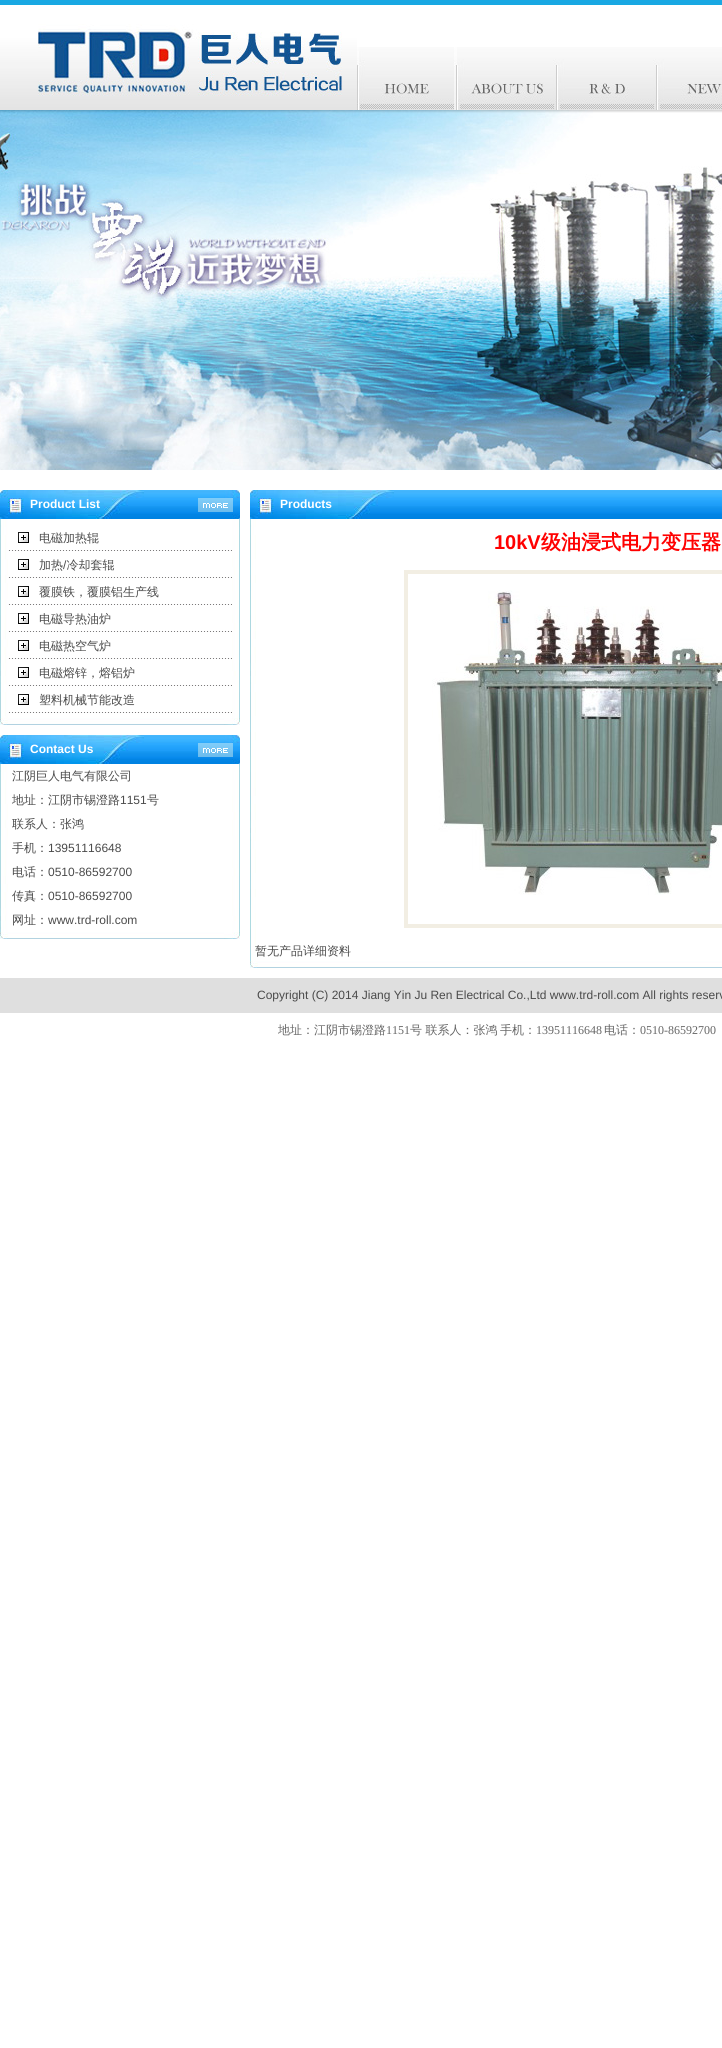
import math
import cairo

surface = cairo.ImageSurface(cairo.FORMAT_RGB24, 722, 2048)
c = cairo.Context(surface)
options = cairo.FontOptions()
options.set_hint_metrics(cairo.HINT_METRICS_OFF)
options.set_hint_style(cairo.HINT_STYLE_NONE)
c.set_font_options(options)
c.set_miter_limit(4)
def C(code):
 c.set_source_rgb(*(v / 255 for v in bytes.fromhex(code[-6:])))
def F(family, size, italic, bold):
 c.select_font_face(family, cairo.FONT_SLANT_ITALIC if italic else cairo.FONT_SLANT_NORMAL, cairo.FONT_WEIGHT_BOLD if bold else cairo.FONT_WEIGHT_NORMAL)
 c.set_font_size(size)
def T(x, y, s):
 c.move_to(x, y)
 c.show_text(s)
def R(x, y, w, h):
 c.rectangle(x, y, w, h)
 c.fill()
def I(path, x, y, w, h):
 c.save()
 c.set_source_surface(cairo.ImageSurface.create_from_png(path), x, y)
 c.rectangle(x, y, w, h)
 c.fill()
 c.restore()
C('ffffff')
c.paint()
I('1.png',0,0,38,110)
I('2.png',38,0,319,110)
I('3.png',357,0,365,5)
I('4.png',357,47,100,63)
I('5.png',457,47,100,63)
I('6.png',557,47,100,63)
I('7.png',657,47,65,63)
I('8.png',0,110,722,360)
I('9.png',0,490,240,29)
F('Liberation Sans',12,0,1)
C('ffffff')
T(30,508,'Product List')
I('10.png',198,498,35,14)
I('11.png',0,519,240,199)
I('12.png',18,532,11,11)
F('WenQuanYi Zen Hei Medium',12,0,0)
C('4a4a4a')
T(39,542,'电磁加热辊')
I('13.png',8,550,224,1)
I('12.png',18,559,11,11)
T(39,569,'加热 冷却套辊')
F('Liberation Sans',12,0,0)
T(63,569,'/')
I('13.png',8,577,224,1)
I('12.png',18,586,11,11)
F('WenQuanYi Zen Hei Medium',12,0,0)
T(39,596,'覆膜铁，覆膜铝生产线')
I('13.png',8,604,224,1)
I('12.png',18,613,11,11)
T(39,623,'电磁导热油炉')
I('13.png',8,631,224,1)
I('12.png',18,640,11,11)
T(39,650,'电磁热空气炉')
I('13.png',8,658,224,1)
I('12.png',18,667,11,11)
T(39,677,'电磁熔锌，熔铝炉')
I('13.png',8,685,224,1)
I('12.png',18,694,11,11)
T(39,704,'塑料机械节能改造')
I('13.png',8,712,224,1)
I('14.png',0,718,240,7)
I('9.png',0,735,240,29)
F('Liberation Sans',12,0,1)
C('ffffff')
T(30,753,'Contact Us')
I('10.png',198,743,35,14)
I('15.png',0,764,240,168)
F('WenQuanYi Zen Hei Medium',12,0,0)
C('4a4a4a')
T(12,780,'江阴巨人电气有限公司')
T(12,804,'地址：江阴市锡澄路')
F('Liberation Sans',12,0,0)
T(120,804,'1151')
F('WenQuanYi Zen Hei Medium',12,0,0)
T(147,804,'号')
T(12,828,'联系人：张鸿')
T(12,852,'手机：')
F('Liberation Sans',12,0,0)
T(48,852,'13951116648')
F('WenQuanYi Zen Hei Medium',12,0,0)
T(12,876,'电话：')
F('Liberation Sans',12,0,0)
T(48,876,'0510-86592700')
F('WenQuanYi Zen Hei Medium',12,0,0)
T(12,900,'传真：')
F('Liberation Sans',12,0,0)
T(48,900,'0510-86592700')
F('WenQuanYi Zen Hei Medium',12,0,0)
T(12,924,'网址：')
F('Liberation Sans',12,0,0)
T(48,924,'www.trd-roll.com')
I('14.png',0,932,240,7)
I('16.png',250,490,472,29)
F('Liberation Sans',12,0,1)
C('ffffff')
T(280,508,'Products')
I('17.png',250,519,6,442)
F('Liberation Sans',20,0,1)
C('ff0000')
T(494,549,'10kV')
F('WenQuanYi Zen Hei',20,0,1)
T(541,549,'级油浸式电力变压器')
c.rectangle(406,572,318,354)
C('f2eee3')
c.set_line_width(4)
c.stroke()
I('18.png',432,590,290,305)
F('WenQuanYi Zen Hei Medium',12,0,0)
C('4a4a4a')
T(255,955,'暂无产品详细资料')
I('19.png',250,961,472,7)
C('dfdfdf')
R(0,978,722,35)
F('Liberation Sans',12,0,0)
C('4a4a4a')
T(257,999,'Copyright (C) 2014 Jiang Yin Ju Ren Electrical Co.,Ltd www.trd-roll.com All rights reserv')
F('WenQuanYi Zen Hei Medium',12,0,0)
C('666666')
T(278,1034,'地址：江阴市锡澄路')
F('Liberation Serif',12,0,0)
T(386,1034,'1151')
F('WenQuanYi Zen Hei Medium',12,0,0)
T(410,1034,'号 联系人：张鸿')
T(500,1034,'手机：')
F('Liberation Serif',12,0,0)
T(536,1034,'13951116648')
F('WenQuanYi Zen Hei Medium',12,0,0)
T(604,1034,'电话：')
F('Liberation Serif',12,0,0)
T(640,1034,'0510-86592700')
surface.write_to_png('o.png')
